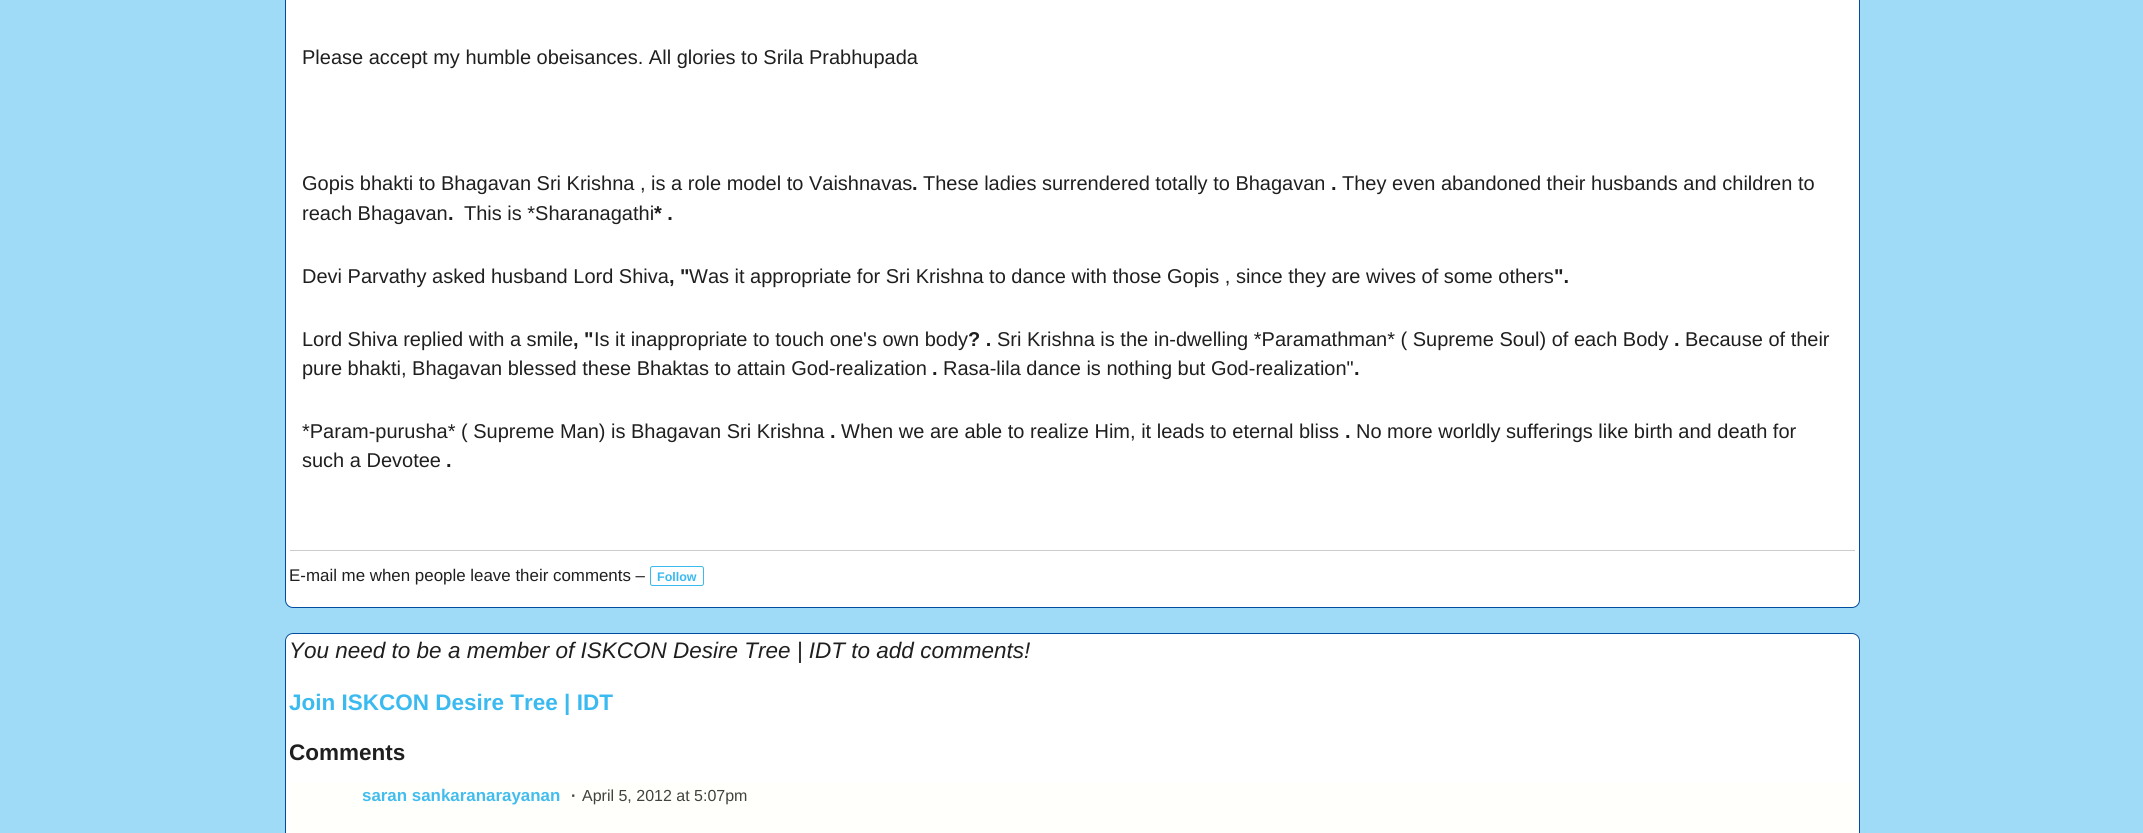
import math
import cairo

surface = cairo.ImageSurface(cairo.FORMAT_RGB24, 2143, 833)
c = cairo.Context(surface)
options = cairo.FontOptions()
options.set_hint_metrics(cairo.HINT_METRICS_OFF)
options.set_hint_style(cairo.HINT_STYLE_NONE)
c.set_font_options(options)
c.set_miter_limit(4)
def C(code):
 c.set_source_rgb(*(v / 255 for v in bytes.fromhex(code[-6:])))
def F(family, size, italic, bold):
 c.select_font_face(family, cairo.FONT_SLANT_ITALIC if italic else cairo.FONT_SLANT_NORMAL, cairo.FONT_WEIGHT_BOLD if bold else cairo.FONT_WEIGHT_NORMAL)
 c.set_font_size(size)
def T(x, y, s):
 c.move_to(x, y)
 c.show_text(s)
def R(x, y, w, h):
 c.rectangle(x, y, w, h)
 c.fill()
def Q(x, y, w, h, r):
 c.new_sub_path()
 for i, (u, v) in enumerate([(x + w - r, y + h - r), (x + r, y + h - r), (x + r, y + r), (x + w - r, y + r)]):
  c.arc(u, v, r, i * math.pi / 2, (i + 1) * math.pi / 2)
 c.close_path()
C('9fdaf7')
c.paint()
C('ffffff')
Q(285.5,-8.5,1574,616,7.5)
c.fill_preserve()
C('004d9f')
c.set_line_width(1)
c.stroke()
F('Liberation Sans',20,0,0)
C('1f1f1f')
T(302,64,'Please accept my humble obeisances. All glories to Srila Prabhupada')
T(302,190,'Gopis bhakti to Bhagavan Sri Krishna , is a role model to Vaishnavas')
F('Liberation Sans',20,0,1)
T(912,190,'.')
F('Liberation Sans',20,0,0)
T(923,190,'These ladies surrendered totally to Bhagavan')
F('Liberation Sans',20,0,1)
T(1331,190,'.')
F('Liberation Sans',20,0,0)
T(1342,190,'They even abandoned their husbands and children to')
T(302,220,'reach Bhagavan')
F('Liberation Sans',20,0,1)
T(448,220,'.')
F('Liberation Sans',20,0,0)
T(464,220,'This is *Sharanagathi')
F('Liberation Sans',20,0,1)
T(654,220,'* .')
F('Liberation Sans',20,0,0)
T(302,283,'Devi Parvathy asked husband Lord Shiva')
F('Liberation Sans',20,0,1)
T(669,283,', "')
F('Liberation Sans',20,0,0)
T(689,283,'Was it appropriate for Sri Krishna to dance with those Gopis , since they are wives of some others')
F('Liberation Sans',20,0,1)
T(1554,283,'".')
F('Liberation Sans',20,0,0)
T(302,346,'Lord Shiva replied with a smile')
F('Liberation Sans',20,0,1)
T(573,346,', "')
F('Liberation Sans',20,0,0)
T(594,346,'Is it inappropriate to touch one\'s own body')
F('Liberation Sans',20,0,1)
T(968,346,'? .')
F('Liberation Sans',20,0,0)
T(997,346,'Sri Krishna is the in-dwelling *Paramathman* ( Supreme Soul) of each Body')
F('Liberation Sans',20,0,1)
T(1674,346,'.')
F('Liberation Sans',20,0,0)
T(1685,346,'Because of their')
T(302,375,'pure bhakti, Bhagavan blessed these Bhaktas to attain God-realization')
F('Liberation Sans',20,0,1)
T(932,375,'.')
F('Liberation Sans',20,0,0)
T(943,375,'Rasa-lila dance is nothing but God-realization"')
F('Liberation Sans',20,0,1)
T(1354,375,'.')
F('Liberation Sans',20,0,0)
T(302,438,'*Param-purusha* ( Supreme Man) is Bhagavan Sri Krishna')
F('Liberation Sans',20,0,1)
T(830,438,'.')
F('Liberation Sans',20,0,0)
T(841,438,'When we are able to realize Him, it leads to eternal bliss')
F('Liberation Sans',20,0,1)
T(1345,438,'.')
F('Liberation Sans',20,0,0)
T(1356,438,'No more worldly sufferings like birth and death for')
T(302,467,'such a Devotee')
F('Liberation Sans',20,0,1)
T(446,467,'.')
C('cccccc')
R(290,550,1565,1)
F('Liberation Sans',16.9,0,0)
C('1f1f1f')
T(289,581,'E-mail me when people leave their comments –')
Q(650.5,566.5,53,19,2)
C('3bbaf0')
c.stroke()
F('Liberation Sans',12.5,0,1)
T(657,581,'Follow')
C('ffffff')
Q(285,633,1575,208,8)
c.fill()
C('fffffb')
R(290,783,1565,50)
Q(285.5,633.5,1574,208,7.5)
C('004d9f')
c.stroke()
F('Liberation Sans',22.5,1,0)
C('1f1f1f')
T(289,658,'You need to be a member of ISKCON Desire Tree | IDT to add comments!')
F('Liberation Sans',22.5,0,1)
C('3bbaf0')
T(289,710,'Join ISKCON Desire Tree | IDT')
C('1f1f1f')
T(289,760,'Comments')
c.save()
c.rectangle(363,783,1492,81)
c.clip()
F('Liberation Sans',16.9,0,1)
C('43bded')
T(362,801,'saran sankaranarayanan')
c.restore()
F('Liberation Sans',16,0,1)
C('41413d')
T(571,801,'·')
F('Liberation Sans',16,0,0)
T(582,801,'April 5, 2012 at 5:07pm')
surface.write_to_png('o.png')
